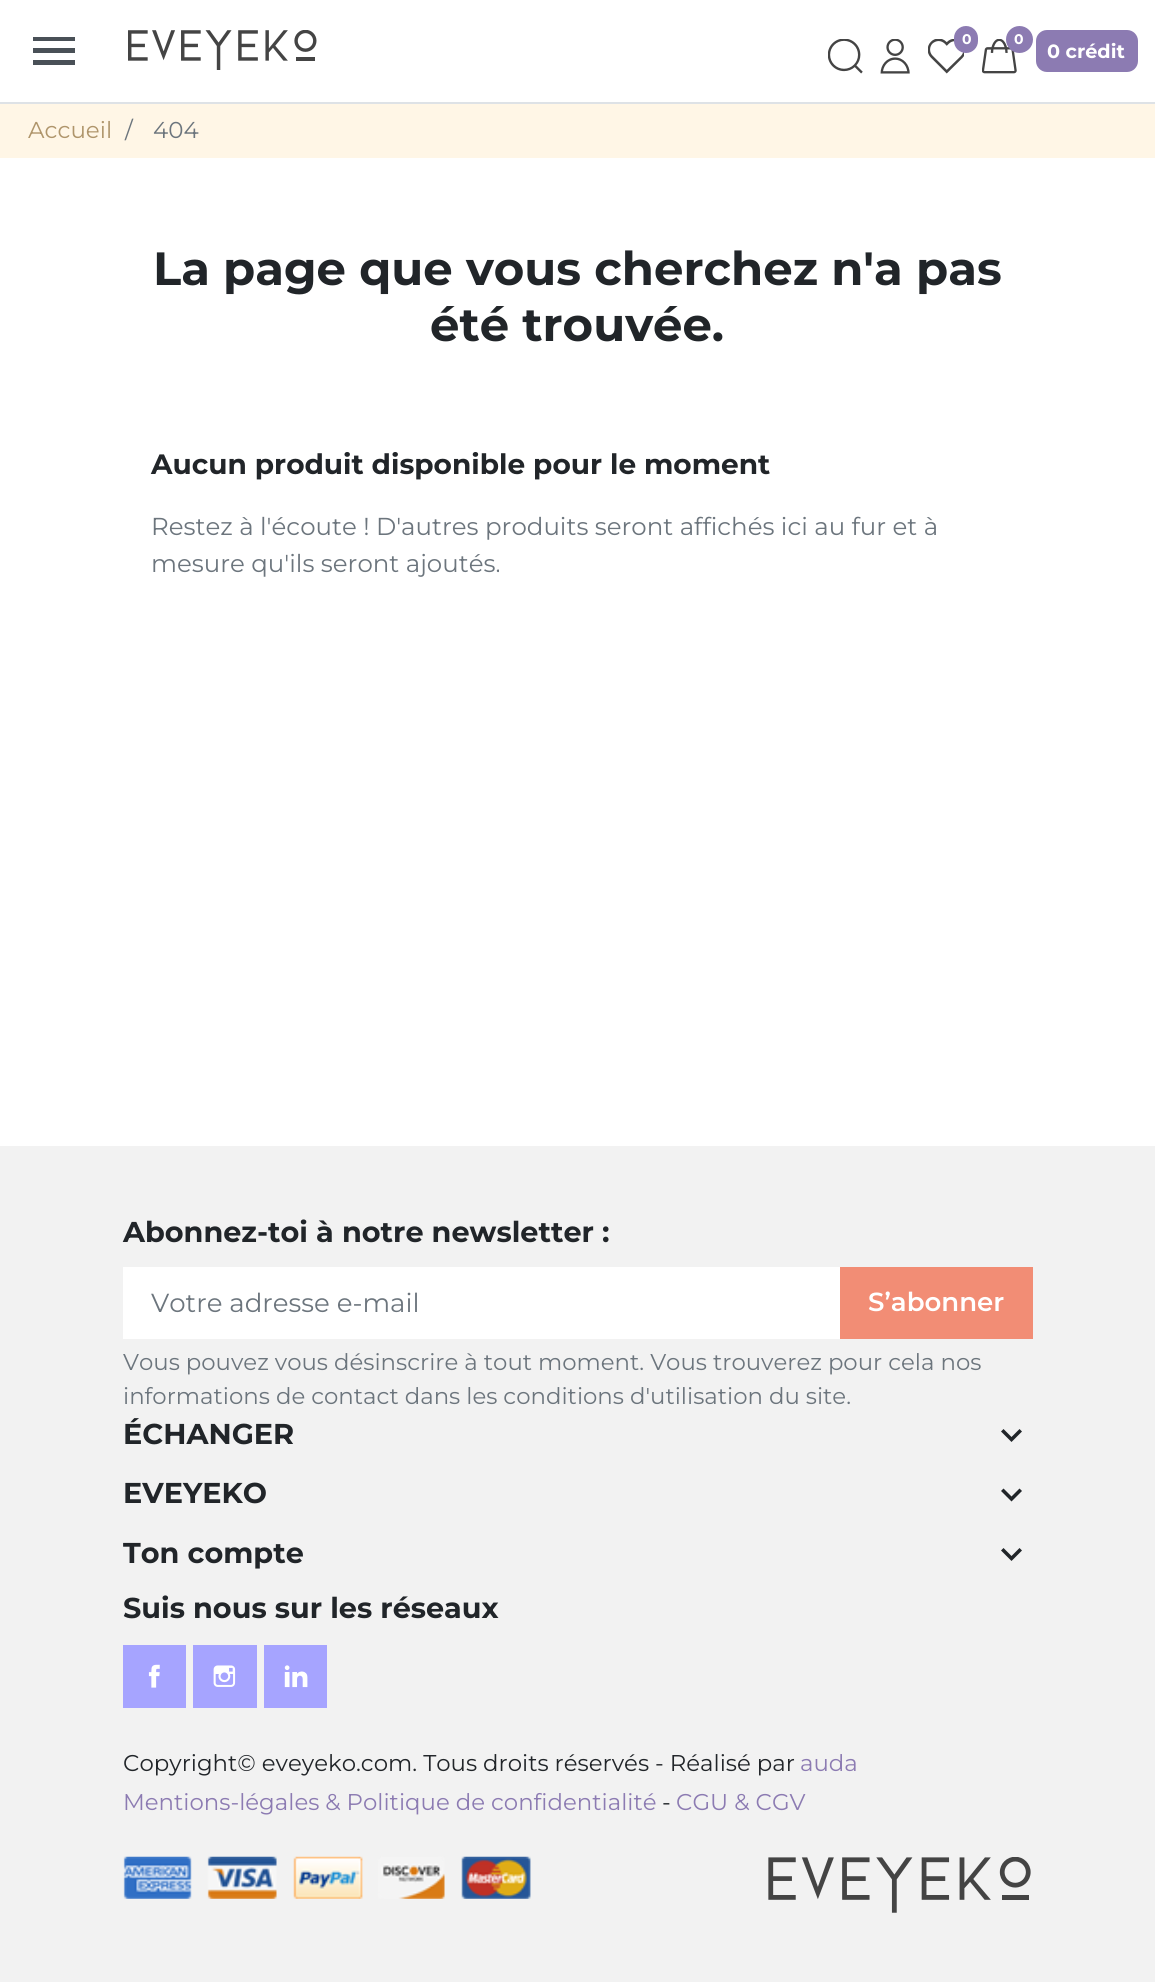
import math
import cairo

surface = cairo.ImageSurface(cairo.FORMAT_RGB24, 1155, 1982)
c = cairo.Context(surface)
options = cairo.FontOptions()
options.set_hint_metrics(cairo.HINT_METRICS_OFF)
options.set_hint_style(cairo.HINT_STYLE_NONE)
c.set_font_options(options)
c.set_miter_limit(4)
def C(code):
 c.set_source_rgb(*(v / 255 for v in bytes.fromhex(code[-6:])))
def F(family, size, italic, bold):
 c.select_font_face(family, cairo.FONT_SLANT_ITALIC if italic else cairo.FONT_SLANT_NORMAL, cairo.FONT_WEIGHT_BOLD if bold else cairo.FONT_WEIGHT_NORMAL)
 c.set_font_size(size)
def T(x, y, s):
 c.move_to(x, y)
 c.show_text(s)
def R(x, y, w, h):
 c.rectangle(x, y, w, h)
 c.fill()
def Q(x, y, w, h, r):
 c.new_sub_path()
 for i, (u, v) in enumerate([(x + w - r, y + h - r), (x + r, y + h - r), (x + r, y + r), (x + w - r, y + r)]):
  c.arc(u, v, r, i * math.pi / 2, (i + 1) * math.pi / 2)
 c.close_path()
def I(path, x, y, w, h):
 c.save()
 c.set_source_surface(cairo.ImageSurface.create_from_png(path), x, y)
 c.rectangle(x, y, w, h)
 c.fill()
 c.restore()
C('ffffff')
c.paint()
C('dee2e6')
R(0,102,1155,2)
C('495057')
c.new_path()
c.move_to(33,37)
c.line_to(75,37)
c.line_to(75,41)
c.line_to(33,41)
c.close_path()
c.move_to(33,53)
c.line_to(33,48)
c.line_to(75,48)
c.line_to(75,53)
c.close_path()
c.move_to(33,65)
c.line_to(33,60)
c.line_to(75,60)
c.line_to(75,65)
c.close_path()
c.fill()
I('1.png',128,30,189,40)
I('2.png',828,39,35,35)
I('3.png',880,39,30,35)
I('4.png',928,39,36,35)
C('8c7bb2')
Q(954,26,24,27,12)
c.fill()
F('Montserrat',14,0,1)
C('ffffff')
T(962,44,'0')
I('5.png',982,39,35,35)
C('8c7bb2')
c.arc(1019.5,39.5,13.5,0,2 * math.pi)
c.fill()
C('ffffff')
T(1014,44,'0')
C('8c7bb2')
Q(1036,30,102,42,11)
c.fill()
F('Montserrat',19.25,0,1)
C('ffffff')
T(1047,58,'0 crédit')
C('fff6e6')
R(0,104,1155,54)
F('Montserrat',23,0,0)
C('af956b')
T(28,138,'Accueil')
C('6c757d')
T(125,138,'/')
T(153,138,'404')
F('Montserrat',46.6,0,1)
C('212529')
T(153,285,'La page que vous cherchez n\'a pas')
T(430,341,'été trouvée.')
F('Montserrat',28,0,1)
T(151,474,'Aucun produit disponible pour le moment')
F('Montserrat',24.5,0,0)
C('6c757d')
T(151,535,'Restez à l\'écoute ! D\'autres produits seront affichés ici au fur et à')
T(151,572,'mesure qu\'ils seront ajoutés.')
C('f2f2f2')
R(0,1146,1155,836)
F('Montserrat',28.7,0,1)
C('212529')
T(123,1242,'Abonnez-toi à notre newsletter :')
C('ffffff')
R(123,1267,717,72)
F('Montserrat',26.1,0,0)
C('6c757d')
T(151,1312,'Votre adresse e-mail')
C('f28d75')
R(840,1267,193,72)
F('Montserrat SemiBold',26.1,0,0)
C('ffffff')
T(868,1311,'S’abonner')
F('Montserrat',22.85,0,0)
C('6c757d')
T(123,1370,'Vous pouvez vous désinscrire à tout moment. Vous trouverez pour cela nos')
T(123,1404,'informations de contact dans les conditions d\'utilisation du site.')
F('Montserrat',28.7,0,1)
C('212529')
T(123,1444,'ÉCHANGER')
c.new_path()
c.move_to(1003.5,1429)
c.line_to(1011.5,1437)
c.line_to(1019.5,1429)
c.line_to(1022,1431.5)
c.line_to(1011.5,1442)
c.line_to(1001,1431.5)
c.close_path()
c.fill()
T(123,1503,'EVEYEKO')
c.new_path()
c.move_to(1003.5,1488.5)
c.line_to(1011.5,1496.5)
c.line_to(1019.5,1488.5)
c.line_to(1022,1491)
c.line_to(1011.5,1501.5)
c.line_to(1001,1491)
c.close_path()
c.fill()
T(123,1563,'Ton compte')
c.new_path()
c.move_to(1003.5,1548)
c.line_to(1011.5,1556)
c.line_to(1019.5,1548)
c.line_to(1022,1550.5)
c.line_to(1011.5,1561)
c.line_to(1001,1550.5)
c.close_path()
c.fill()
T(123,1618,'Suis nous sur les réseaux')
C('a6a4ff')
R(123,1645,63,63)
I('6.png',148,1664,12,24)
R(193,1645,64,63)
I('7.png',213,1665,23,22)
R(264,1645,63,63)
I('8.png',284,1665,24,23)
F('Montserrat',22.85,0,0)
C('212529')
T(123,1771,'Copyright© eveyeko.com. Tous droits réservés - Réalisé par')
C('8c7bb2')
T(800,1771,'auda')
T(123,1810,'Mentions-légales & Politique de confidentialité')
C('212529')
T(662,1810,'-')
C('8c7bb2')
T(676,1810,'CGU & CGV')
I('9.png',123,1856,408,43)
I('10.png',768,1857,263,56)
surface.write_to_png('o.png')
